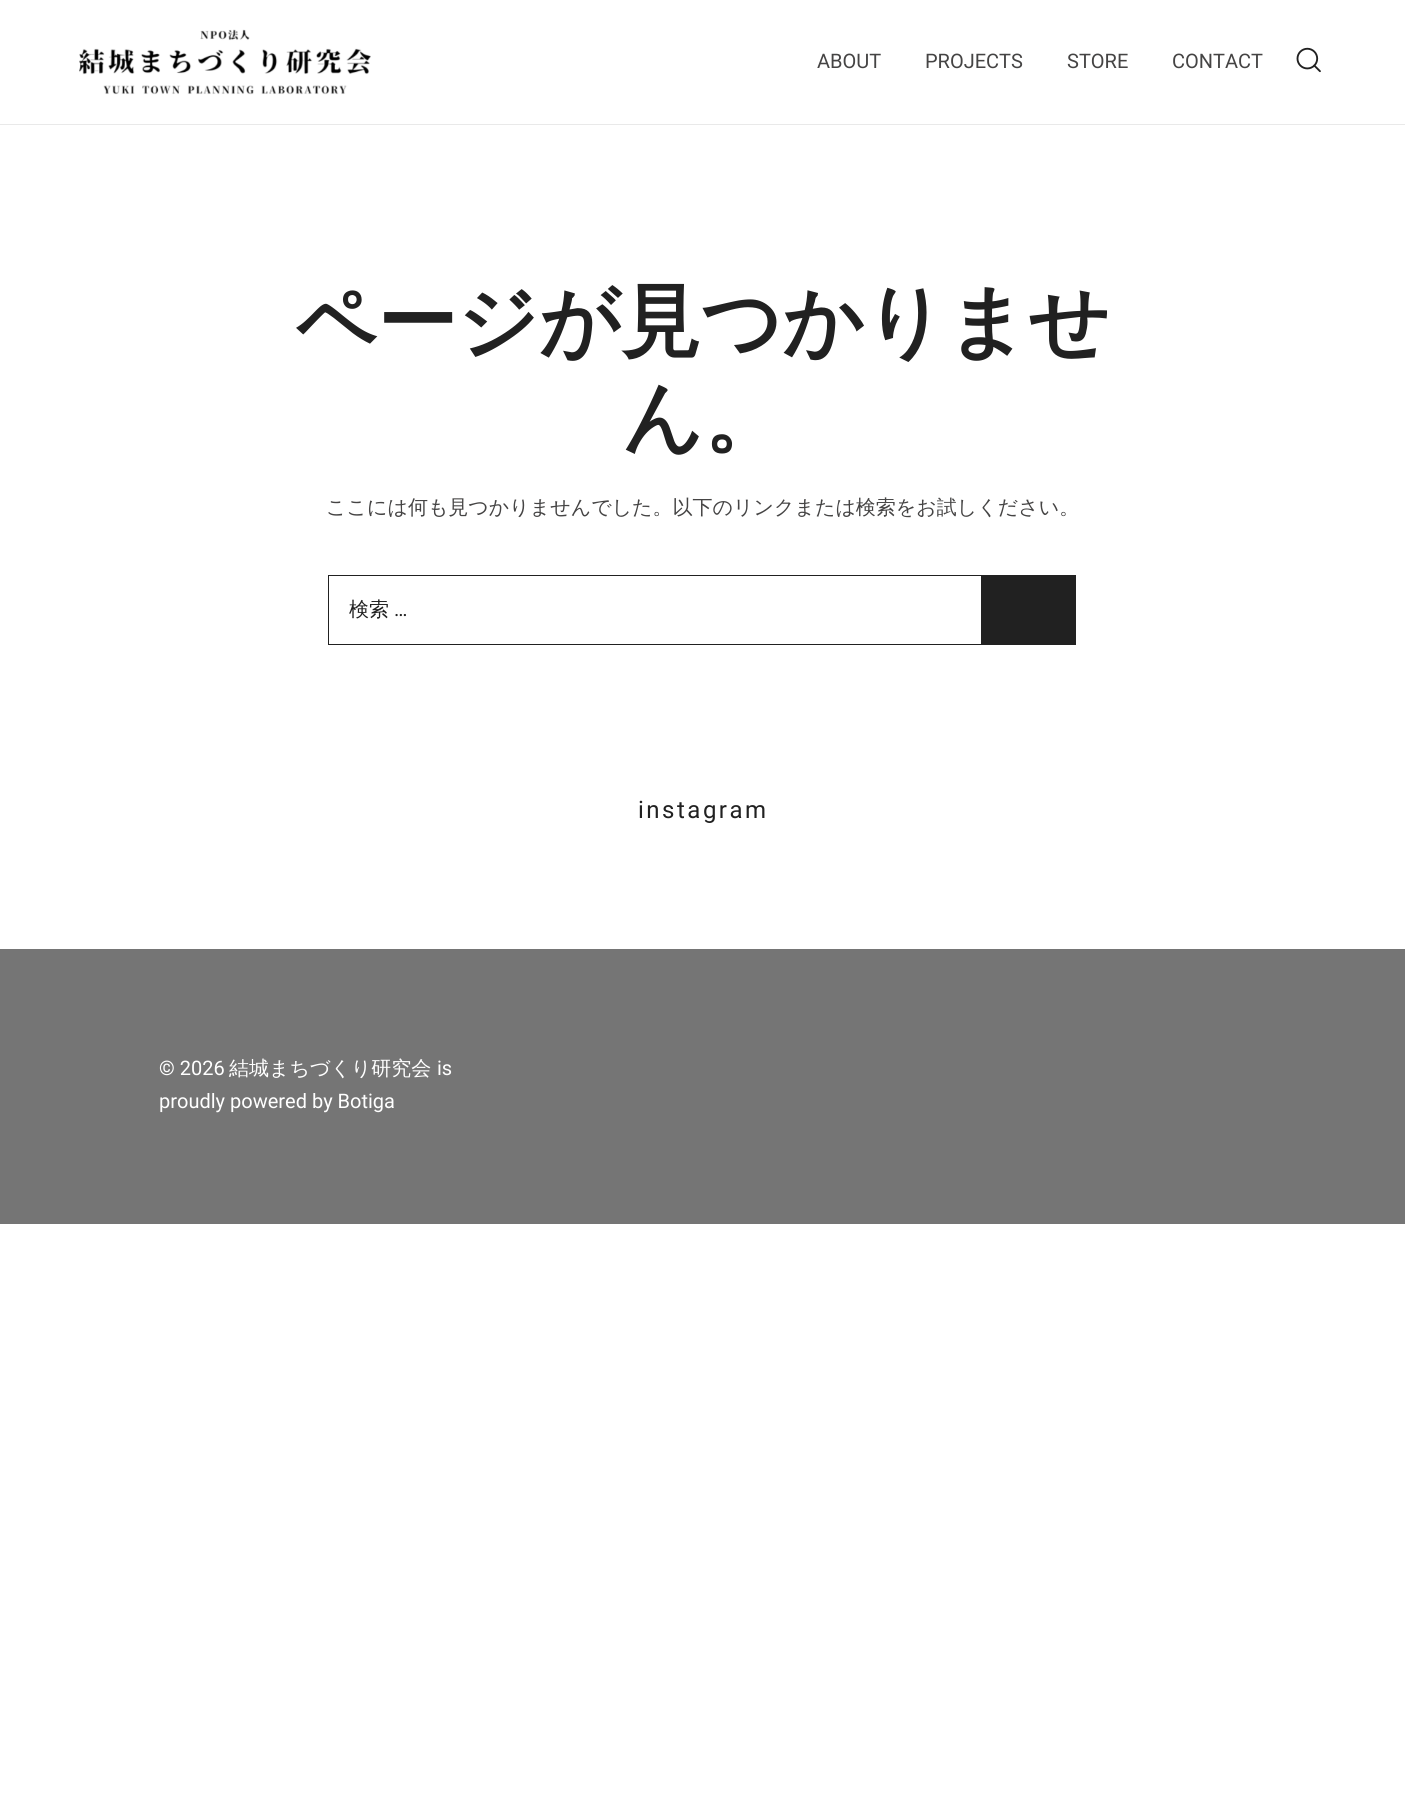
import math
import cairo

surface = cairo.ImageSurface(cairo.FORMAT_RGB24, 1405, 1804)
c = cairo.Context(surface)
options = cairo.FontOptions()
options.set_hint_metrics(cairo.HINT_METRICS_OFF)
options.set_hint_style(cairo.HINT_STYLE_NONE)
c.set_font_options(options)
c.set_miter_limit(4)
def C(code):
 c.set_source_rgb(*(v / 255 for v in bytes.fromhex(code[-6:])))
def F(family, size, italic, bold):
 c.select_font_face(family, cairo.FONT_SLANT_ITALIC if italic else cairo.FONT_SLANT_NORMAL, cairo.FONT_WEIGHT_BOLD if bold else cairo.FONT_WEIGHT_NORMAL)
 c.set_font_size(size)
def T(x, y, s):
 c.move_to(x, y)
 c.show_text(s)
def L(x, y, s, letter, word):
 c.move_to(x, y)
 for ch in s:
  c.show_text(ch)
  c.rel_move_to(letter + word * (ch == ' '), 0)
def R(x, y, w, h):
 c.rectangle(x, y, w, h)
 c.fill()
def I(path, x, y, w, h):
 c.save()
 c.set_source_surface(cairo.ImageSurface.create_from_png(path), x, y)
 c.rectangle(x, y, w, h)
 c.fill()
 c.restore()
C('ffffff')
c.paint()
C('e9e9e9')
R(0,124,1405,1)
I('1.png',79,29,292,66)
F('Roboto',20,0,0)
C('454444')
T(817,68,'ABOUT')
T(925,68,'PROJECTS')
T(1067,68,'STORE')
T(1172,68,'CONTACT')
I('2.png',1296,47,25,26)
F('WenQuanYi Zen Hei',80,0,1)
C('212121')
T(295,349,'ページが見つかりませ')
T(622,445,'ん。')
F('WenQuanYi Zen Hei Medium',20,0,0)
C('454444')
T(326,514,'ここには何も見つかりませんでした。以下のリンクまたは検索をお試しください。')
c.rectangle(328.5,575.5,654,69)
C('212121')
c.set_line_width(1)
c.stroke()
T(349,616,'検索')
F('Roboto',20,0,0)
T(394,616,'…')
R(981,575,95,70)
F('Roboto',24,0,0)
L(638,818,'instagram',2.5,0)
C('757575')
R(0,949,1405,275)
F('Roboto',20,0,0)
C('ffffff')
T(159,1075,'© 2026')
F('WenQuanYi Zen Hei Medium',20,0,0)
T(229,1075,'結城まちづくり研究会')
F('Roboto',20,0,0)
T(437,1075,'is')
T(159,1108,'proudly powered by Botiga')
surface.write_to_png('o.png')
